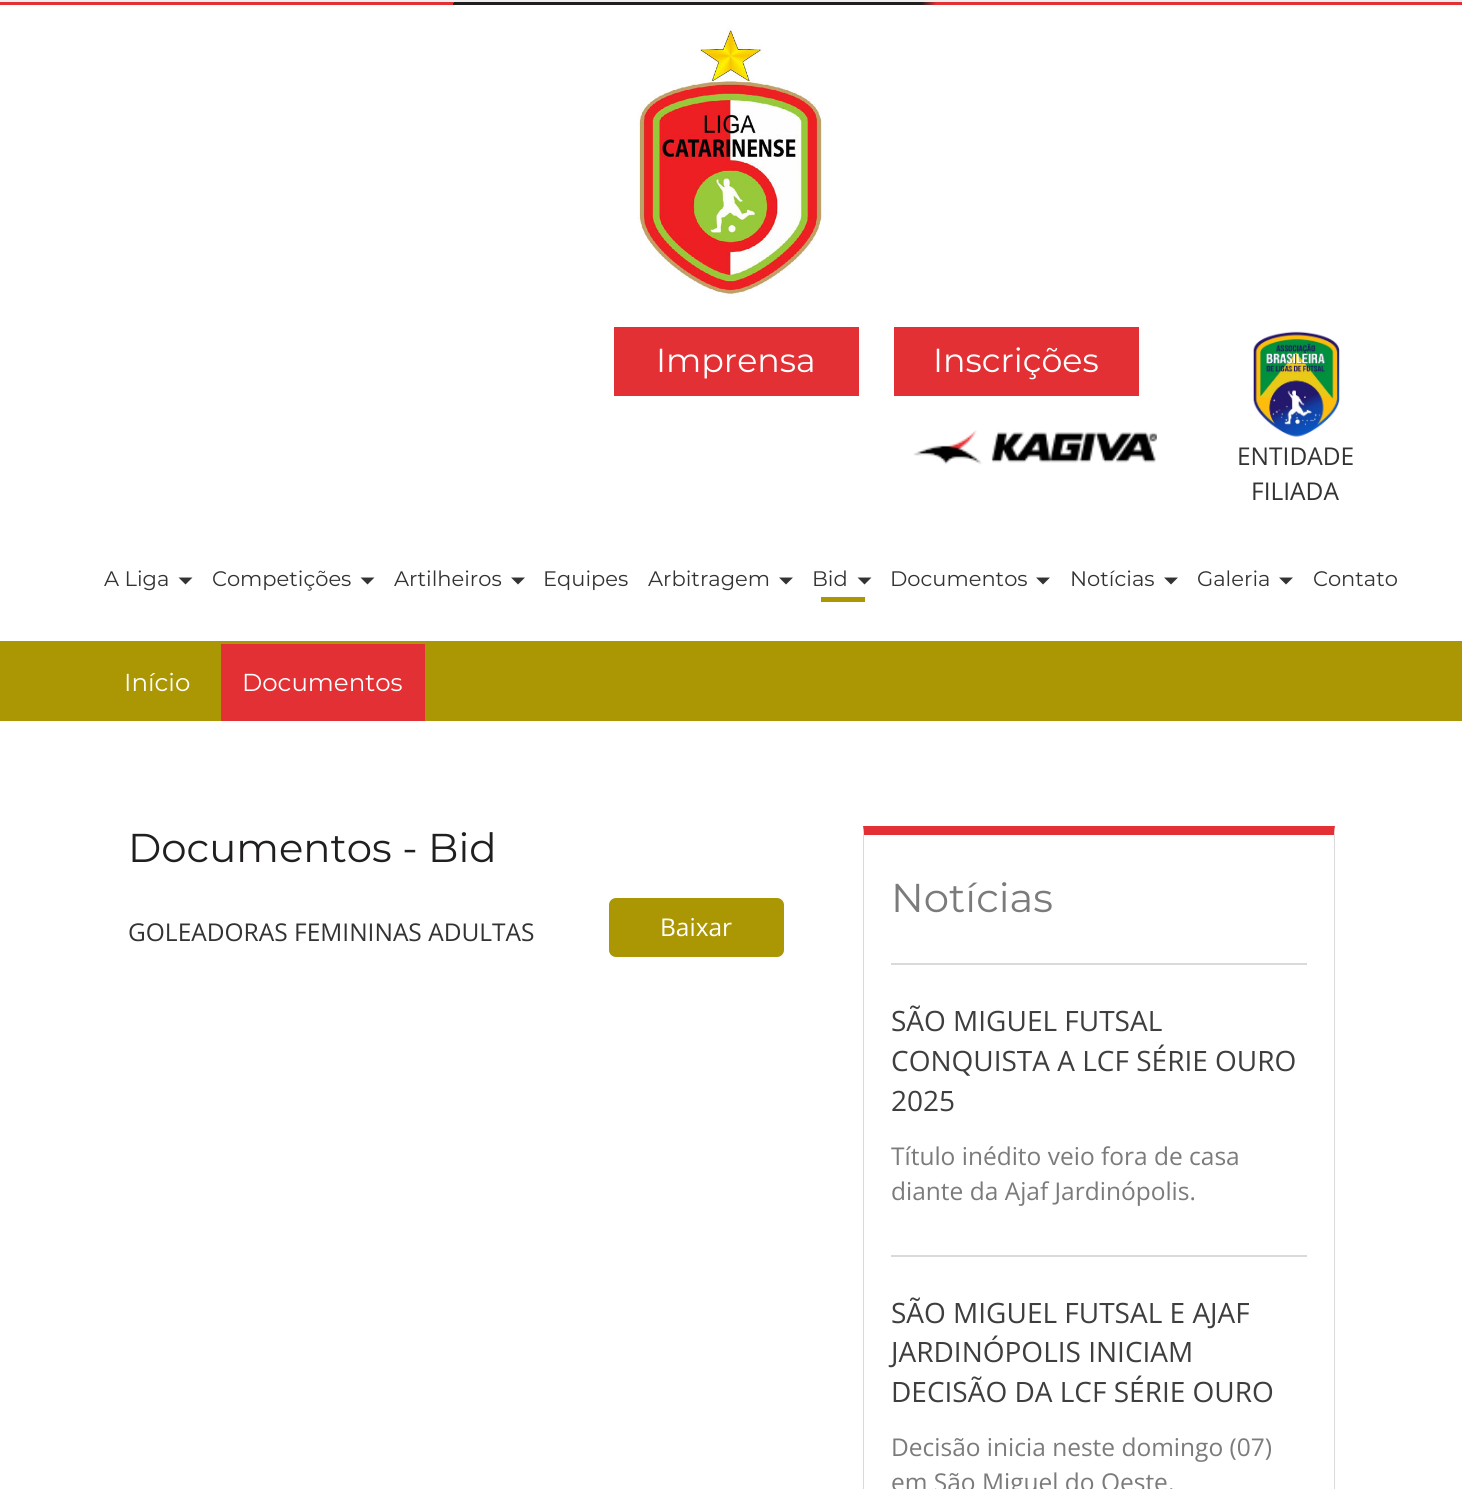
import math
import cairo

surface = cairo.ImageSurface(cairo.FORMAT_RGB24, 1462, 1489)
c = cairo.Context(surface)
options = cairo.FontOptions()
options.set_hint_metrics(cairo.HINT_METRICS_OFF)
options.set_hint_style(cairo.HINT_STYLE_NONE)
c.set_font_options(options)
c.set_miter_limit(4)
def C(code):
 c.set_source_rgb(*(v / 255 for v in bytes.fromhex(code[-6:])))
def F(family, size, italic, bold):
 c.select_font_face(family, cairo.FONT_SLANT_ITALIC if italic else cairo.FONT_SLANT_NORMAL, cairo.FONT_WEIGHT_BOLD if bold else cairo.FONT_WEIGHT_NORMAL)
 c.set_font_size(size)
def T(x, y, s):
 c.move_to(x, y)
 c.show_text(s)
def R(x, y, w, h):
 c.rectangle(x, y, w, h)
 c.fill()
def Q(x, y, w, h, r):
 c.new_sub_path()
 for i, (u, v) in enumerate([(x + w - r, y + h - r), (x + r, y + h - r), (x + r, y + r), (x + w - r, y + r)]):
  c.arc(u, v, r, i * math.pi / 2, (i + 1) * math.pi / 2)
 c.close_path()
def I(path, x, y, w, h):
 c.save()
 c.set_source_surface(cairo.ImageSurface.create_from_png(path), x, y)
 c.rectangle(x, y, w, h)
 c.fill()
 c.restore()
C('ffffff')
c.paint()
gradient = cairo.LinearGradient(1461,42,1.9,-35)
gradient.add_color_stop_rgba(.36,0.89,0.188,0.204,1)
gradient.add_color_stop_rgba(.37,0.125,0.118,0.122,1)
gradient.add_color_stop_rgba(.69,0.125,0.118,0.122,1)
gradient.add_color_stop_rgba(.69,0.89,0.188,0.204,1)
c.set_source(gradient)
R(0,2,1462,3)
C('eeeeee')
R(0,0,1462,2)
I('1.png',637,27,187,270)
C('e33034')
R(614,327,245,69)
F('Montserrat',33.25,0,0)
C('ffffff')
T(656,372,'Imprensa')
C('e33034')
R(894,327,245,69)
C('ffffff')
T(933,372,'Inscrições')
I('2.png',913,430,244,35)
I('3.png',1253,331,88,106)
F('Open Sans',24.5,0,0)
C('333333')
T(1237,465,'ENTIDADE')
T(1251,500,'FILIADA')
F('Montserrat',21,0,0)
T(104,586,'A Liga')
c.new_path()
c.move_to(178.5,577.5)
c.line_to(192.5,577.5)
c.line_to(185.5,584.5)
c.close_path()
c.fill()
T(212,586,'Competições')
c.new_path()
c.move_to(360.5,577.5)
c.line_to(374.5,577.5)
c.line_to(367.5,584.5)
c.close_path()
c.fill()
T(394,586,'Artilheiros')
c.new_path()
c.move_to(511,577.5)
c.line_to(525,577.5)
c.line_to(518,584.5)
c.close_path()
c.fill()
T(543,586,'Equipes')
T(648,586,'Arbitragem')
c.new_path()
c.move_to(779,577.5)
c.line_to(793,577.5)
c.line_to(786,584.5)
c.close_path()
c.fill()
T(812,586,'Bid')
c.new_path()
c.move_to(857.5,577.5)
c.line_to(871.5,577.5)
c.line_to(864.5,584.5)
c.close_path()
c.fill()
C('ab9704')
R(821,597,44,5)
C('333333')
T(890,586,'Documentos')
c.new_path()
c.move_to(1036,577.5)
c.line_to(1050,577.5)
c.line_to(1043,584.5)
c.close_path()
c.fill()
T(1070,586,'Notícias')
c.new_path()
c.move_to(1164,577.5)
c.line_to(1178,577.5)
c.line_to(1171,584.5)
c.close_path()
c.fill()
T(1197,586,'Galeria')
c.new_path()
c.move_to(1279,577.5)
c.line_to(1293,577.5)
c.line_to(1286,584.5)
c.close_path()
c.fill()
T(1313,586,'Contato')
C('ab9704')
R(0,641,1462,80)
F('Montserrat',24.5,0,0)
C('ffffff')
T(124,691,'Início')
C('e33034')
R(221,644,204,77)
C('ffffff')
T(242,691,'Documentos')
F('Montserrat',40.25,0,0)
C('201e1f')
T(128,862,'Documentos - Bid')
F('Open Sans',24.5,0,0)
C('333333')
T(128,941,'GOLEADORAS FEMININAS ADULTAS')
C('ab9704')
Q(610,899,173,57,6)
c.fill_preserve()
c.stroke()
C('ffffff')
T(660,936,'Baixar')
C('e33034')
c.new_path()
c.move_to(863,826)
c.line_to(1335,826)
c.line_to(1334,835)
c.line_to(864,835)
c.close_path()
c.fill()
C('dcd9d9')
c.new_path()
c.move_to(1335,826)
c.line_to(1335,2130)
c.line_to(1334,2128)
c.line_to(1334,835)
c.close_path()
c.fill()
c.new_path()
c.move_to(863,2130)
c.line_to(863,826)
c.line_to(864,835)
c.line_to(864,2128)
c.close_path()
c.fill()
F('Montserrat',40.25,0,0)
C('7b7b7b')
T(891,912,'Notícias')
C('dcd9d9')
R(891,963,416,2)
F('Open Sans',28,0,0)
C('3e3e3e')
T(891,1031,'SÃO MIGUEL FUTSAL')
T(891,1071,'CONQUISTA A LCF SÉRIE OURO')
T(891,1111,'2025')
F('Open Sans',24.5,0,0)
C('7b7b7b')
T(891,1165,'Título inédito veio fora de casa')
T(891,1200,'diante da Ajaf Jardinópolis.')
C('dcd9d9')
R(891,1255,416,2)
F('Open Sans',28,0,0)
C('3e3e3e')
T(891,1323,'SÃO MIGUEL FUTSAL E AJAF')
T(891,1362,'JARDINÓPOLIS INICIAM')
T(891,1402,'DECISÃO DA LCF SÉRIE OURO')
F('Open Sans',24.5,0,0)
C('7b7b7b')
T(891,1456,'Decisão inicia neste domingo (07)')
T(891,1491,'em São Miguel do Oeste.')
surface.write_to_png('o.png')
